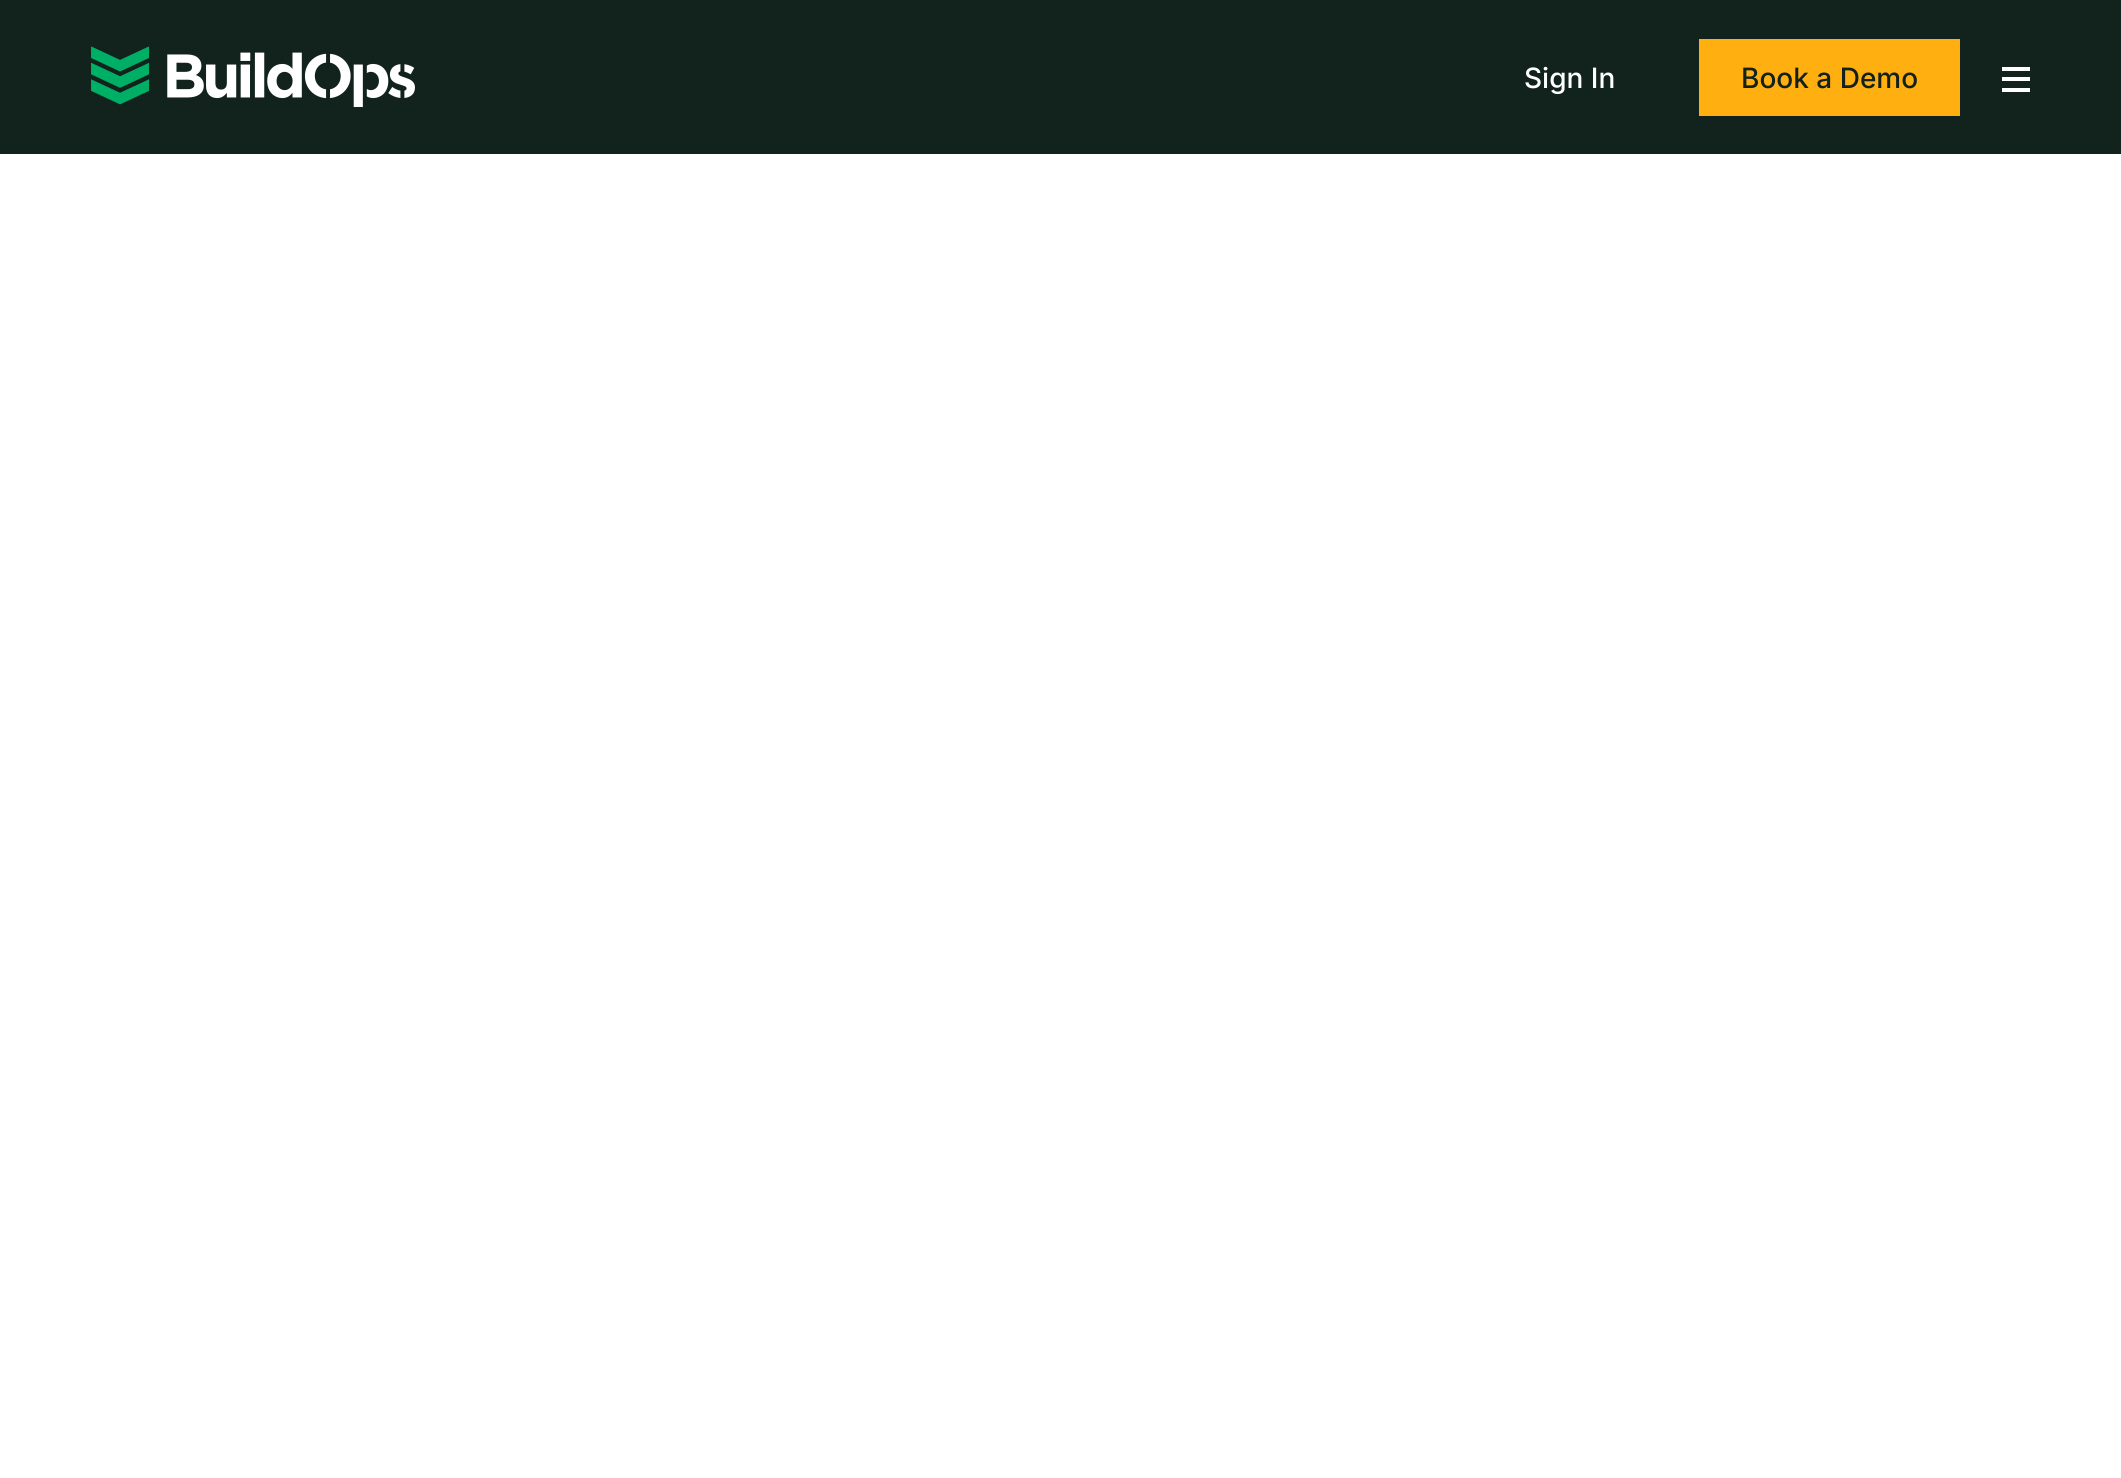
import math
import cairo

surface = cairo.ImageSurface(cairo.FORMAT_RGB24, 2121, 1478)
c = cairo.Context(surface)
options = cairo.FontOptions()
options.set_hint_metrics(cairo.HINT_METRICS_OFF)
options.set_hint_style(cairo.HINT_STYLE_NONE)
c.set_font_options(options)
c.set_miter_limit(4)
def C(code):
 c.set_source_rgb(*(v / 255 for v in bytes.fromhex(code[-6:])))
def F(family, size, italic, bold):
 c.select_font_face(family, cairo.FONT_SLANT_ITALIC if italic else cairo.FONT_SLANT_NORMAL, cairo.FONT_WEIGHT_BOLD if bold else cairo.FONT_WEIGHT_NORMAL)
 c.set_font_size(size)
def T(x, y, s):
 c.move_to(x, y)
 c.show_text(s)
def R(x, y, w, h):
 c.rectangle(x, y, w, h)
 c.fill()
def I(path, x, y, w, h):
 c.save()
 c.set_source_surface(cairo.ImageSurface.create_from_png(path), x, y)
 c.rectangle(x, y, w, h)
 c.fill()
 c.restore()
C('ffffff')
c.paint()
C('12221c')
R(0,0,2121,154)
I('1.png',91,46,324,61)
F('Inter Medium',28,0,0)
C('ffffff')
T(1524,88,'Sign In')
C('ffaf0f')
R(1699,39,261,77)
C('12211b')
T(1741,88,'Book a Demo')
C('ffffff')
R(2002,67,28,4)
R(2002,77,28,4)
R(2002,88,28,4)
surface.write_to_png('o.png')
